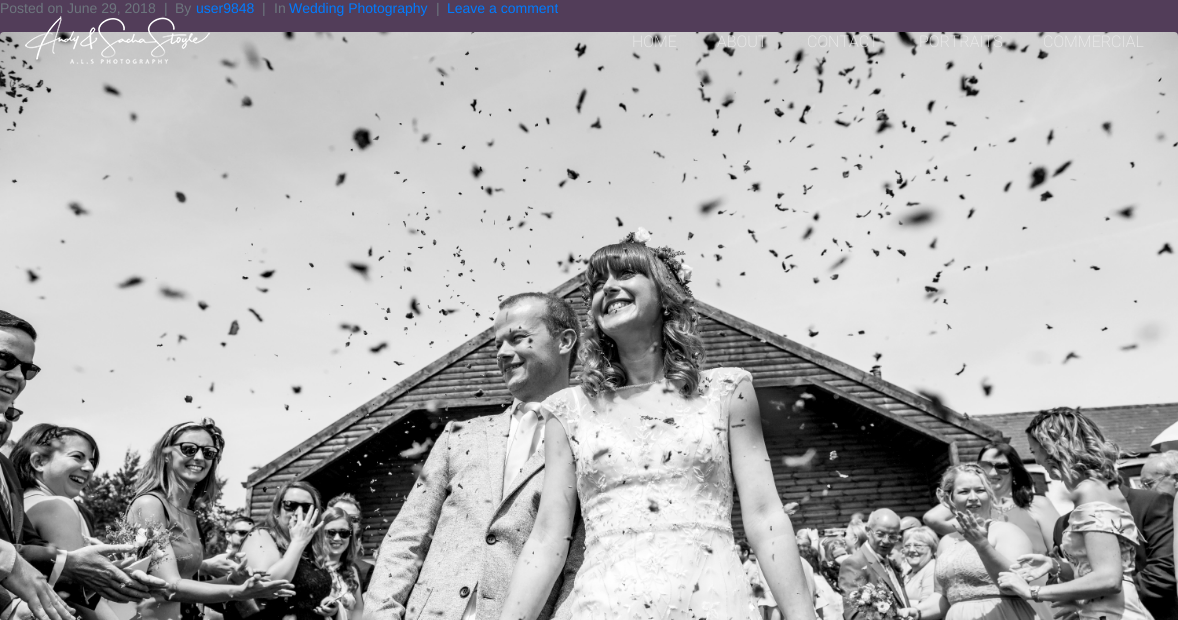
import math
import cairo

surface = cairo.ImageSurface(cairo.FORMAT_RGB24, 1178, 620)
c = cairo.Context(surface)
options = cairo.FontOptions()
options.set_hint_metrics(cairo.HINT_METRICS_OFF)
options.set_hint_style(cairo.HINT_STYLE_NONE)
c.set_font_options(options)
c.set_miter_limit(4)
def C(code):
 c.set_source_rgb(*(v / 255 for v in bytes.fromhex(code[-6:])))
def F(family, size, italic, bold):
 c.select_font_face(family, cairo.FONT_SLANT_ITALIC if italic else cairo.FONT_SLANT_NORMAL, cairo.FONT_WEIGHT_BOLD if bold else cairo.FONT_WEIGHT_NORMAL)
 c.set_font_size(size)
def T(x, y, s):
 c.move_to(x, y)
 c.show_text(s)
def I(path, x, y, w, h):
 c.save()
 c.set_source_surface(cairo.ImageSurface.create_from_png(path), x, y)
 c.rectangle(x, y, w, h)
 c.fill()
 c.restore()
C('523d59')
c.paint()
F('Liberation Sans',14,0,0)
C('6c757d')
T(0,13,'Posted on June 29, 2018')
T(164,13,'|')
T(175,13,'By')
C('007bff')
T(196,13,'user9848')
C('6c757d')
T(262,13,'|')
T(274,13,'In')
C('007bff')
T(289,13,'Wedding Photography')
C('6c757d')
T(436,13,'|')
C('007bff')
T(447,13,'Leave a comment')
I('1.png',0,32,1178,588)
I('2.png',25,16,185,48)
F('Roboto ExtraLight',16,0,0)
C('ececec')
T(632,47,'HOME')
T(717,47,'ABOUT')
T(807,47,'CONTACT')
T(919,47,'PORTRAITS')
T(1043,47,'COMMERCIAL')
surface.write_to_png('o.png')
